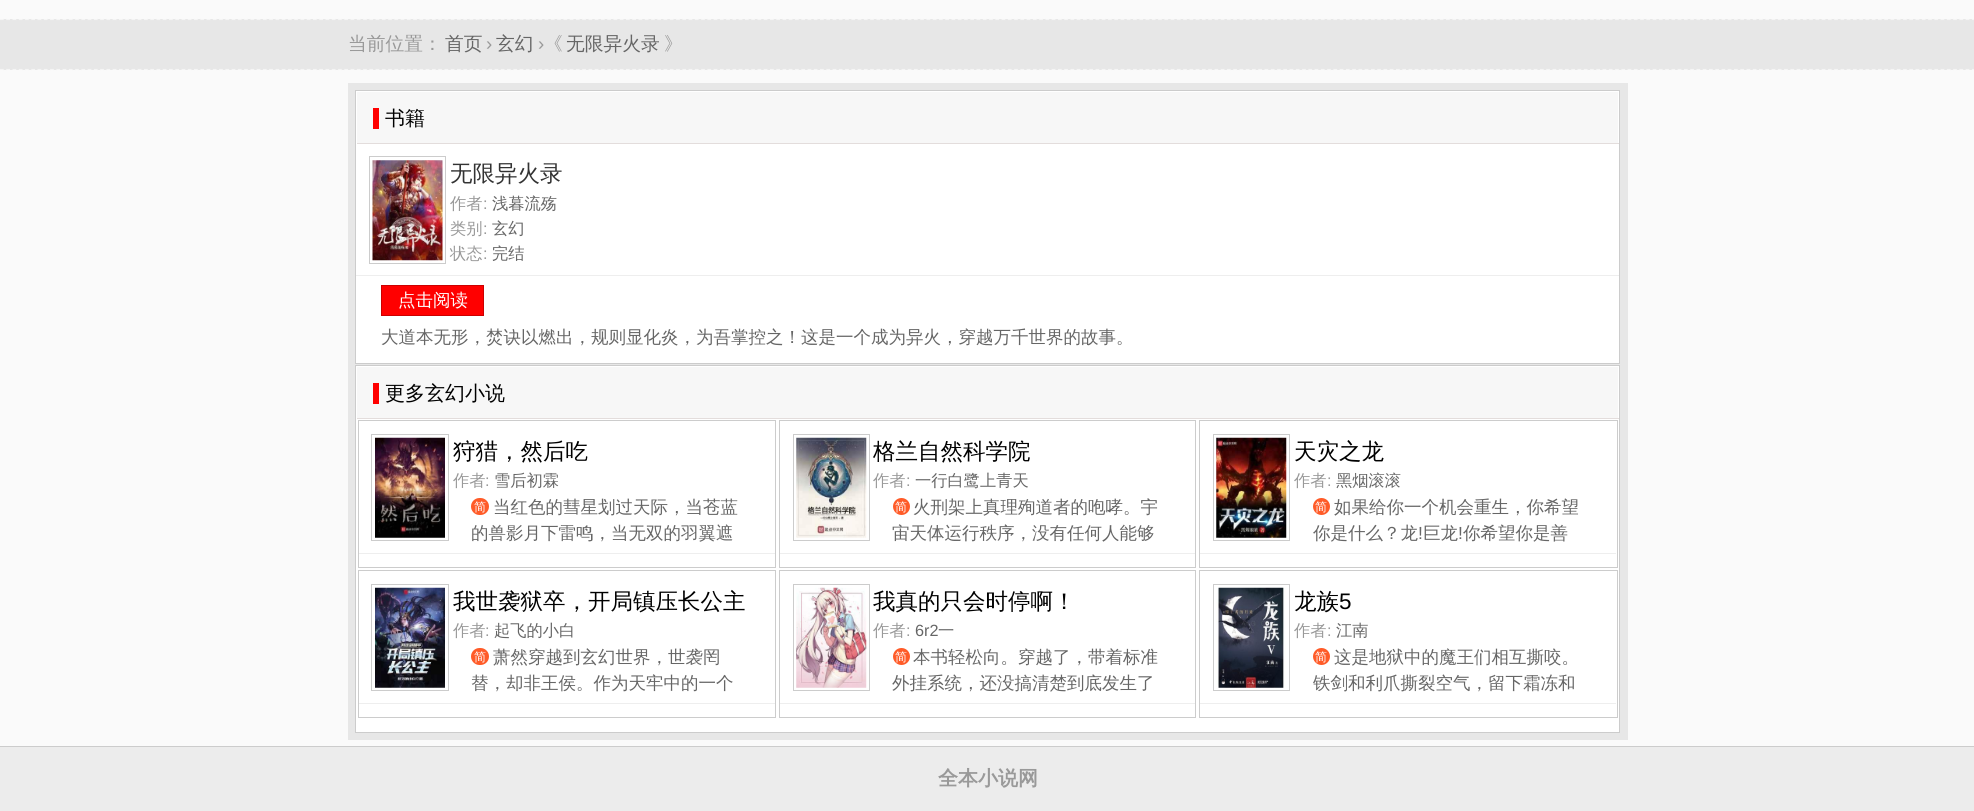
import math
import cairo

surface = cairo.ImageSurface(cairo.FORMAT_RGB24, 1974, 811)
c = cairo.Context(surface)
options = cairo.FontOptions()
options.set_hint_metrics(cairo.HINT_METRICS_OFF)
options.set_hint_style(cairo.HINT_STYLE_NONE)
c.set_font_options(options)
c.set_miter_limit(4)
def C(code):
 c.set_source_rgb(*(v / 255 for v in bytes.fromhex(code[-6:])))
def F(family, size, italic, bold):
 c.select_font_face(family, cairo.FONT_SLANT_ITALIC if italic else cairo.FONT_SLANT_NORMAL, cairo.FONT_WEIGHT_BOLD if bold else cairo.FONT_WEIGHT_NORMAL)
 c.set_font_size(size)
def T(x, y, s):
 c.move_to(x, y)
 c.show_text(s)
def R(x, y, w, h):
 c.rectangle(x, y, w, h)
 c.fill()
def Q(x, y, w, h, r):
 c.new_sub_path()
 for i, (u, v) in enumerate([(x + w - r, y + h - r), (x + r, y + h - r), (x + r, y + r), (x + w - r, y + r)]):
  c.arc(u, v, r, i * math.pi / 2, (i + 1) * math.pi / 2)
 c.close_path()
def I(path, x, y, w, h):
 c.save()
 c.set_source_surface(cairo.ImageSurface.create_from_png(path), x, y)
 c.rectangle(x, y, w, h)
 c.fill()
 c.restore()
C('fafafa')
c.paint()
C('e7e7e7')
R(0,19,1974,51)
c.new_path()
c.move_to(0,19.5)
c.line_to(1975,19.5)
C('f5f5f5')
c.set_line_width(1.2)
c.set_dash([3.75,2.51])
c.stroke()
c.new_path()
c.move_to(0,69.5)
c.line_to(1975,69.5)
c.stroke()
F('WenQuanYi Zen Hei Medium',18.75,0,0)
C('999999')
T(348,50,'当前位置：')
C('666666')
T(445,50,'首页')
F('Liberation Sans',18.75,0,0)
C('999999')
T(486,50,'›')
F('WenQuanYi Zen Hei Medium',18.75,0,0)
C('666666')
T(496,50,'玄幻')
F('Liberation Sans',18.75,0,0)
C('999999')
T(538,50,'›')
F('WenQuanYi Zen Hei Medium',18.75,0,0)
T(544,50,'《')
C('666666')
T(566,50,'无限异火录')
C('999999')
T(664,50,'》')
C('e7e7e7')
R(348,83,1280,657)
C('ffffff')
R(356,144,1263,219)
c.rectangle(355.5,90.5,1264,273)
C('cccccc')
c.set_line_width(1)
c.set_dash([])
c.stroke()
C('f7f7f7')
R(357,92,1261,51)
C('ffffff')
R(356,91,1263,1)
R(1618,91,1,53)
C('e3dddc')
R(356,143,1263,1)
C('ffffff')
R(356,91,1,53)
F('WenQuanYi Zen Hei Medium',20,0,0)
C('000000')
T(385,125,'书籍')
C('ff0000')
R(373,108,6,21)
C('eeeeee')
R(356,275,1263,1)
c.rectangle(369.5,156.5,76,107)
C('cccccc')
c.stroke()
I('1.png',372,160,71,101)
F('WenQuanYi Zen Hei Medium',22.5,0,0)
C('333333')
T(450,181,'无限异火录')
F('WenQuanYi Zen Hei Medium',16.25,0,0)
C('999999')
T(450,209,'作者')
F('Liberation Sans',16.25,0,0)
T(483,209,':')
F('WenQuanYi Zen Hei Medium',16.25,0,0)
C('666666')
T(492,209,'浅暮流殇')
C('999999')
T(450,234,'类别')
F('Liberation Sans',16.25,0,0)
T(483,234,':')
F('WenQuanYi Zen Hei Medium',16.25,0,0)
C('666666')
T(492,234,'玄幻')
C('999999')
T(450,259,'状态')
F('Liberation Sans',16.25,0,0)
T(483,259,':')
F('WenQuanYi Zen Hei Medium',16.25,0,0)
C('666666')
T(492,259,'完结')
C('ff0000')
c.rectangle(381.5,285.5,102,30)
c.fill_preserve()
C('cc0000')
c.stroke()
F('WenQuanYi Zen Hei Medium',17.5,0,0)
C('ffffff')
T(398,306,'点击阅读')
C('666666')
T(381,343,'大道本无形，焚诀以燃出，规则显化炎，为吾掌控之！这是一个成为异火，穿越万千世界的故事。')
C('ffffff')
R(356,419,1263,313)
c.rectangle(355.5,365.5,1264,367)
C('cccccc')
c.stroke()
C('f7f7f7')
R(357,367,1261,51)
C('ffffff')
R(356,366,1263,1)
R(1618,366,1,53)
C('e3dddc')
R(356,418,1263,1)
C('ffffff')
R(356,366,1,53)
F('WenQuanYi Zen Hei Medium',20,0,0)
C('000000')
T(385,400,'更多玄幻小说')
C('ff0000')
R(373,383,6,21)
c.rectangle(358.5,420.5,417,147)
C('cccccc')
c.stroke()
C('eeeeee')
R(359,553,416,1)
c.rectangle(371.5,434.5,77,106)
C('cccccc')
c.stroke()
I('2.png',375,437,70,101)
F('WenQuanYi Zen Hei Medium',22.5,0,0)
C('000000')
T(453,459,'狩猎，然后吃')
F('WenQuanYi Zen Hei Medium',16.25,0,0)
C('999999')
T(453,486,'作者')
F('Liberation Sans',16.25,0,0)
T(485,486,':')
F('WenQuanYi Zen Hei Medium',16.25,0,0)
C('666666')
T(494,486,'雪后初霖')
C('ff5b28')
Q(471,498,18,17,8.5)
c.fill()
F('WenQuanYi Zen Hei Medium',12,0,0)
C('ffffff')
T(474,511,'简')
F('WenQuanYi Zen Hei Medium',17.5,0,0)
C('666666')
T(493,513,'当红色的彗星划过天际，当苍蓝')
T(471,539,'的兽影月下雷鸣，当无双的羽翼遮')
c.rectangle(779.5,420.5,416,147)
C('cccccc')
c.stroke()
C('eeeeee')
R(780,553,415,1)
c.rectangle(793.5,434.5,76,106)
C('cccccc')
c.stroke()
I('3.png',796,437,71,101)
F('WenQuanYi Zen Hei Medium',22.5,0,0)
C('000000')
T(873,459,'格兰自然科学院')
F('WenQuanYi Zen Hei Medium',16.25,0,0)
C('999999')
T(873,486,'作者')
F('Liberation Sans',16.25,0,0)
T(906,486,':')
F('WenQuanYi Zen Hei Medium',16.25,0,0)
C('666666')
T(915,486,'一行白鹭上青天')
C('ff5b28')
c.new_path()
c.arc(901.5,506.5,8.5,0,2 * math.pi)
c.fill()
F('WenQuanYi Zen Hei Medium',12,0,0)
C('ffffff')
T(895,511,'简')
F('WenQuanYi Zen Hei Medium',17.5,0,0)
C('666666')
T(913,513,'火刑架上真理殉道者的咆哮。宇')
T(892,539,'宙天体运行秩序，没有任何人能够')
c.rectangle(1199.5,420.5,418,147)
C('cccccc')
c.stroke()
C('eeeeee')
R(1200,553,416,1)
c.rectangle(1213.5,434.5,76,106)
C('cccccc')
c.stroke()
I('4.png',1216,437,71,101)
F('WenQuanYi Zen Hei Medium',22.5,0,0)
C('000000')
T(1294,459,'天灾之龙')
F('WenQuanYi Zen Hei Medium',16.25,0,0)
C('999999')
T(1294,486,'作者')
F('Liberation Sans',16.25,0,0)
T(1327,486,':')
F('WenQuanYi Zen Hei Medium',16.25,0,0)
C('666666')
T(1336,486,'黑烟滚滚')
C('ff5b28')
c.new_path()
c.arc(1321.5,506.5,8.5,0,2 * math.pi)
c.fill()
F('WenQuanYi Zen Hei Medium',12,0,0)
C('ffffff')
T(1315,511,'简')
F('WenQuanYi Zen Hei Medium',17.5,0,0)
C('666666')
T(1334,513,'如果给你一个机会重生，你希望')
T(1313,539,'你是什么？龙')
F('Liberation Sans',17.5,0,0)
T(1418,539,'!')
F('WenQuanYi Zen Hei Medium',17.5,0,0)
T(1423,539,'巨龙')
F('Liberation Sans',17.5,0,0)
T(1458,539,'!')
F('WenQuanYi Zen Hei Medium',17.5,0,0)
T(1463,539,'你希望你是善')
c.rectangle(358.5,570.5,417,147)
C('cccccc')
c.stroke()
C('eeeeee')
R(359,703,416,1)
c.rectangle(371.5,584.5,77,106)
C('cccccc')
c.stroke()
I('5.png',375,587,70,101)
F('WenQuanYi Zen Hei Medium',22.5,0,0)
C('000000')
T(453,609,'我世袭狱卒，开局镇压长公主')
F('WenQuanYi Zen Hei Medium',16.25,0,0)
C('999999')
T(453,636,'作者')
F('Liberation Sans',16.25,0,0)
T(485,636,':')
F('WenQuanYi Zen Hei Medium',16.25,0,0)
C('666666')
T(494,636,'起飞的小白')
C('ff5b28')
Q(471,648,18,17,8.5)
c.fill()
F('WenQuanYi Zen Hei Medium',12,0,0)
C('ffffff')
T(474,661,'简')
F('WenQuanYi Zen Hei Medium',17.5,0,0)
C('666666')
T(493,663,'萧然穿越到玄幻世界，世袭罔')
T(471,689,'替，却非王侯。作为天牢中的一个')
c.rectangle(779.5,570.5,416,147)
C('cccccc')
c.stroke()
C('eeeeee')
R(780,703,415,1)
c.rectangle(793.5,584.5,76,106)
C('cccccc')
c.stroke()
I('6.png',796,587,71,101)
F('WenQuanYi Zen Hei Medium',22.5,0,0)
C('000000')
T(873,609,'我真的只会时停啊！')
F('WenQuanYi Zen Hei Medium',16.25,0,0)
C('999999')
T(873,636,'作者')
F('Liberation Sans',16.25,0,0)
T(906,636,':')
C('666666')
T(915,636,'6r2')
F('WenQuanYi Zen Hei Medium',16.25,0,0)
T(938,636,'一')
C('ff5b28')
c.new_path()
c.arc(901.5,656.5,8.5,0,2 * math.pi)
c.fill()
F('WenQuanYi Zen Hei Medium',12,0,0)
C('ffffff')
T(895,661,'简')
F('WenQuanYi Zen Hei Medium',17.5,0,0)
C('666666')
T(913,663,'本书轻松向。穿越了，带着标准')
T(892,689,'外挂系统，还没搞清楚到底发生了')
c.rectangle(1199.5,570.5,418,147)
C('cccccc')
c.stroke()
C('eeeeee')
R(1200,703,416,1)
c.rectangle(1213.5,584.5,76,106)
C('cccccc')
c.stroke()
I('7.png',1216,587,70,101)
F('WenQuanYi Zen Hei Medium',22.5,0,0)
C('000000')
T(1294,609,'龙族')
F('Liberation Sans',22.5,0,0)
T(1339,609,'5')
F('WenQuanYi Zen Hei Medium',16.25,0,0)
C('999999')
T(1294,636,'作者')
F('Liberation Sans',16.25,0,0)
T(1327,636,':')
F('WenQuanYi Zen Hei Medium',16.25,0,0)
C('666666')
T(1336,636,'江南')
C('ff5b28')
c.new_path()
c.arc(1321.5,656.5,8.5,0,2 * math.pi)
c.fill()
F('WenQuanYi Zen Hei Medium',12,0,0)
C('ffffff')
T(1315,661,'简')
F('WenQuanYi Zen Hei Medium',17.5,0,0)
C('666666')
T(1334,663,'这是地狱中的魔王们相互撕咬。')
T(1313,689,'铁剑和利爪撕裂空气，留下霜冻和')
C('ececec')
R(0,747,1974,64)
C('cccccc')
R(0,746,1974,1)
F('WenQuanYi Zen Hei',20,0,1)
C('999999')
T(938,785,'全本小说网')
surface.write_to_png('o.png')
